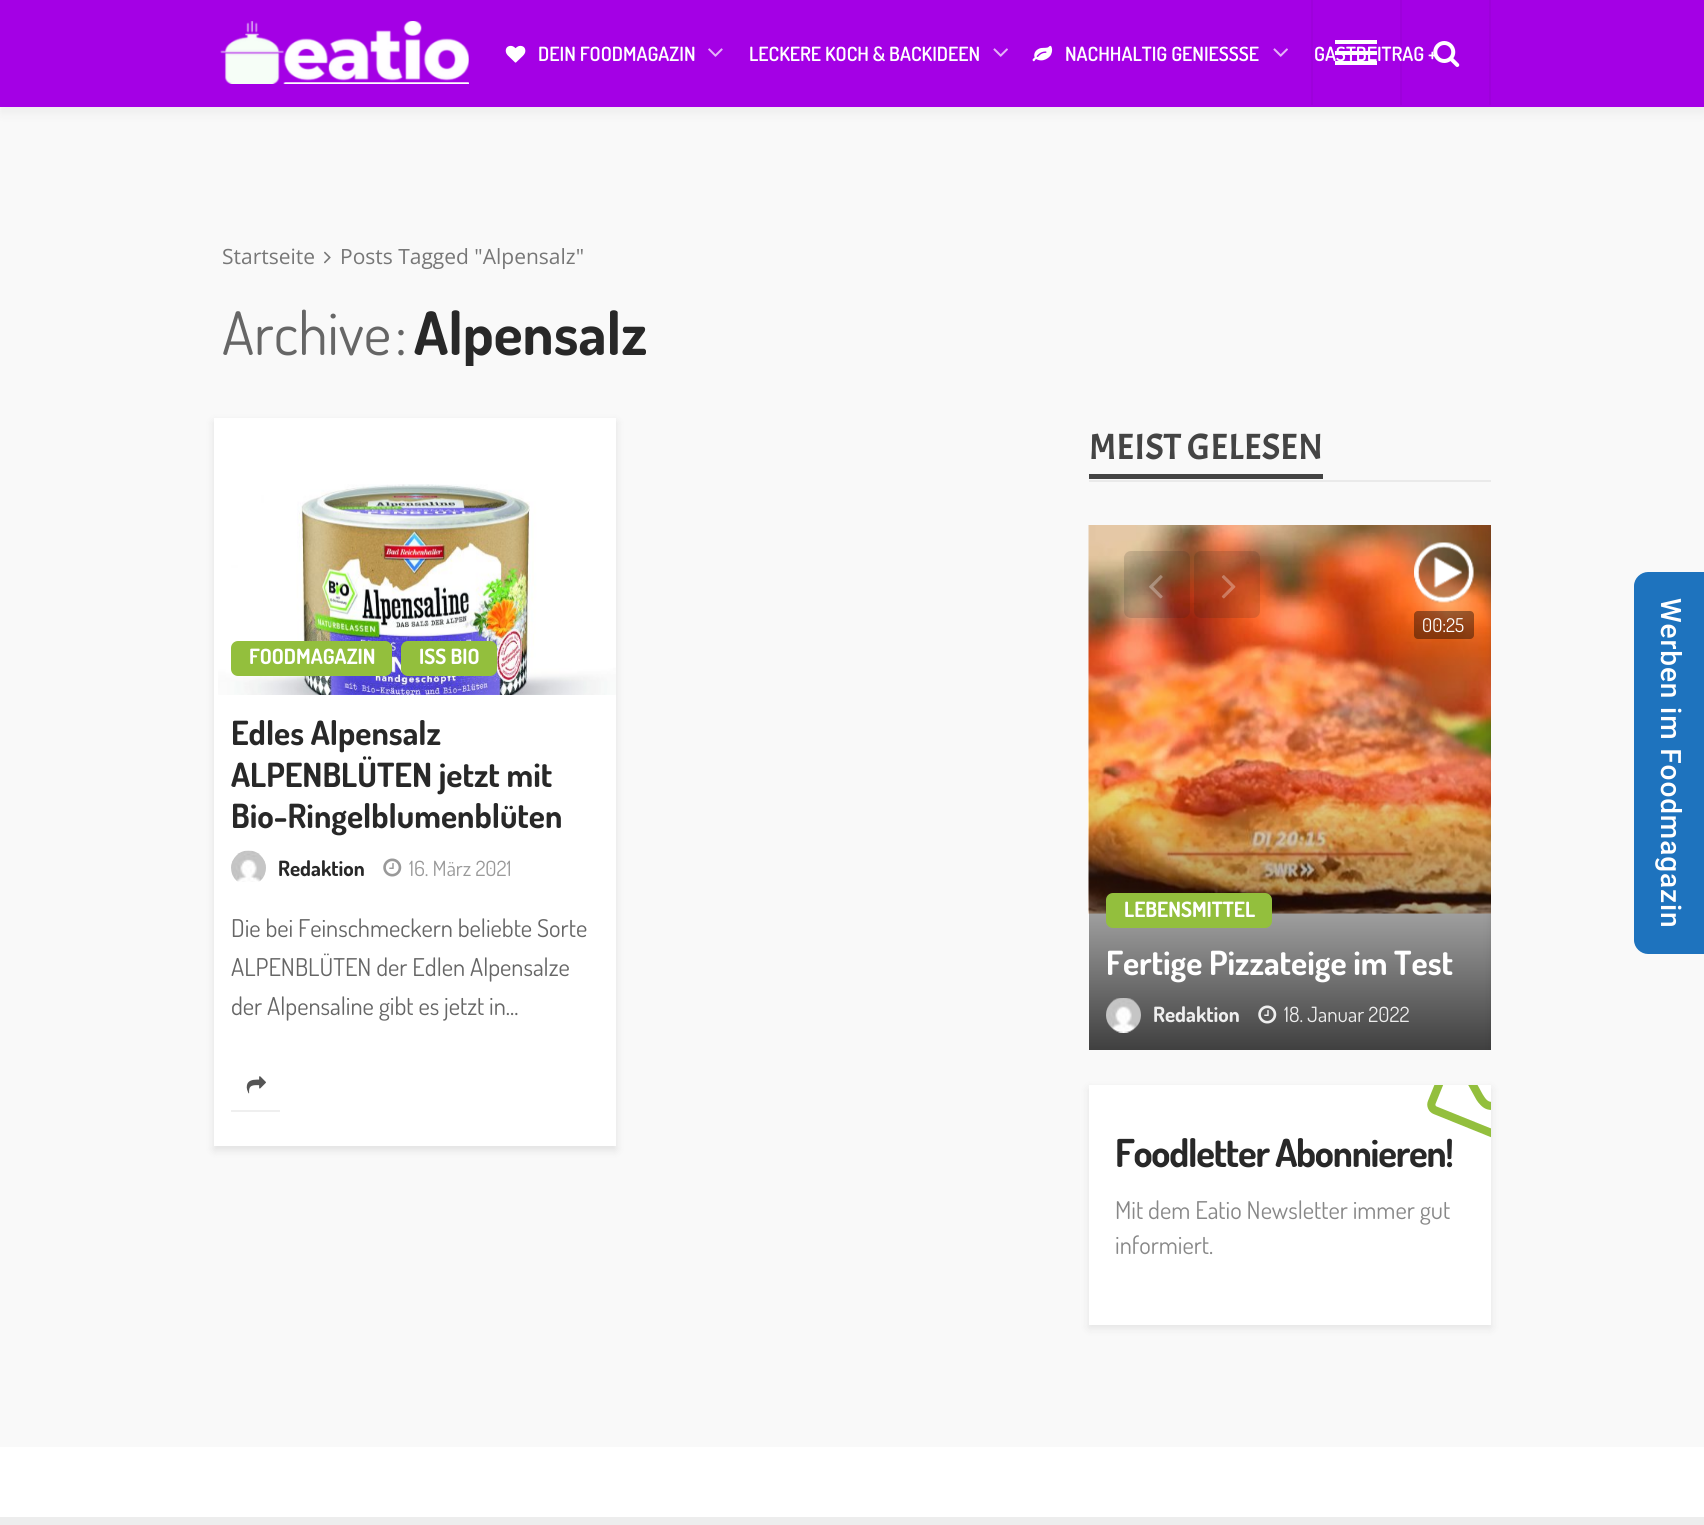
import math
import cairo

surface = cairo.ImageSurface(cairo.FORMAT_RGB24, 1704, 1525)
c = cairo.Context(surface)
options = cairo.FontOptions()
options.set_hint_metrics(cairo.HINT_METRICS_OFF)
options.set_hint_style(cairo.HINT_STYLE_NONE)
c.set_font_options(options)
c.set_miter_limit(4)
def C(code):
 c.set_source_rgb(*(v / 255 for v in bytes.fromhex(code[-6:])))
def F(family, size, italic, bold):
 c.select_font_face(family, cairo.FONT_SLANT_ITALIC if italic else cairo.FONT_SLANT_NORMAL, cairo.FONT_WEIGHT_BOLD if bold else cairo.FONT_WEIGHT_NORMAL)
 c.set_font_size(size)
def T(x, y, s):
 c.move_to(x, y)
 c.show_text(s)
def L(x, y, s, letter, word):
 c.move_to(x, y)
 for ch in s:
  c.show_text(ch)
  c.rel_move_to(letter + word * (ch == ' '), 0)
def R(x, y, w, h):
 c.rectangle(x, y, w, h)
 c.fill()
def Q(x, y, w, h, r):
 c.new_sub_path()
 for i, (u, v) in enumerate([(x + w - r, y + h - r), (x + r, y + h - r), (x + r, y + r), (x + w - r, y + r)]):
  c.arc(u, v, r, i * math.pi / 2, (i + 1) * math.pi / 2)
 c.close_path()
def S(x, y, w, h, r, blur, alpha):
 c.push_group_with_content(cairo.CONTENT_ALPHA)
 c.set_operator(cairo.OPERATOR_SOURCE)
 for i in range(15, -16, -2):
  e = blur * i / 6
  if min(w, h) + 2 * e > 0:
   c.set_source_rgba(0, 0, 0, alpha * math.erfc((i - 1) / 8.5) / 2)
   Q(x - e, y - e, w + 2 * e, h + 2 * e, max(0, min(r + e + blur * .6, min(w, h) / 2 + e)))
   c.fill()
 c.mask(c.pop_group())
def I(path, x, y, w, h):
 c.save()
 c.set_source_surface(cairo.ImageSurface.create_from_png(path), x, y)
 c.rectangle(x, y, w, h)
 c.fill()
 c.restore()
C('f9f9f9')
c.paint()
C('1c1c1c')
S(0,7,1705,107,0,5,.05)
C('a400e5')
R(0,0,1704,107)
C('9d01db')
R(1489,0,2,105)
R(1311,0,2,105)
c.set_source_rgba(0.11,0.11,0.11,0.05)
R(1400,0,2,105)
C('ffffff')
R(1335,51,42,4)
R(1335,40,42,4)
R(1335,61,42,4)
F('Dosis SemiBold',19.6,0,0)
T(1314,61,'GASTBEITRAG +')
I('1.png',1433,41,27,26)
I('2.png',220,21,249,63)
I('3.png',505,45,21,18)
T(538,61,'DEIN FOODMAGAZIN')
I('4.png',708,48,15,9)
T(749,61,'LECKERE KOCH & BACKIDEEN')
I('5.png',993,48,15,9)
I('6.png',1032,45,21,17)
T(1065,61,'NACHHALTIG GENIESSSE')
I('5.png',1273,48,15,9)
F('Open Sans',21,0,0)
C('777777')
T(222,264,'Startseite')
I('7.png',324,251,7,13)
T(340,264,'Posts Tagged "Alpensalz"')
F('Dosis',59.5,0,0)
C('666666')
T(222,355,'Archive')
T(395,355,':')
c.save()
c.rectangle(0,303,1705,63)
c.clip()
F('Dosis',59.5,0,1)
C('282828')
T(414,355,'Alpensalz')
c.restore()
C('000000')
S(214,422,402,728,0,4.5,.1)
C('ffffff')
R(214,418,402,728)
I('8.png',218,484,398,211)
C('93bf3d')
Q(231,641,161,35,7)
c.fill()
F('Dosis',21,0,1)
C('ffffff')
T(249,664,'FOODMAGAZIN')
C('93bf3d')
Q(401,641,96,35,7)
c.fill()
C('ffffff')
T(419,664,'ISS BIO')
F('Dosis',33.25,0,1)
C('282828')
T(231,745,'Edles Alpensalz')
T(231,787,'ALPENBLÜTEN jetzt mit')
T(231,828,'Bio-Ringelblumenblüten')
I('9.png',231,850,35,32)
F('Dosis',21,0,1)
T(278,876,'Redaktion')
I('10.png',383,858,19,19)
F('Dosis',21,0,0)
C('999999')
T(409,876,'16. März 2021')
F('Dosis',24.5,0,0)
C('666666')
T(231,937,'Die bei Feinschmeckern beliebte Sorte')
T(231,976,'ALPENBLÜTEN der Edlen Alpensalze')
T(231,1015,'der Alpensaline gibt es jetzt in...')
C('efefef')
R(231,1110,49,2)
I('11.png',246,1076,20,18)
C('eaeaea')
R(1089,480,402,2)
C('444444')
R(1089,474,234,5)
F('Acme',36.5,0,0)
T(1089,459,'MEIST GELESEN')
C('ffffff')
R(1089,912,402,138)
I('14.png',1088,525,403,389)
c.set_source_rgba(0.11,0.11,0.11,0.15)
Q(1124,551,66,67,7)
c.fill()
I('12.png',1149,575,14,24)
Q(1194,551,66,67,7)
c.fill()
I('13.png',1221,575,15,24)
I('15.png',1414,542,60,61)
c.set_source_rgba(0,0,0,0.4)
Q(1414,611,60,28,4)
c.fill()
F('Dosis',19,0,0)
C('ffffff')
T(1422,632,'00:25')
c.save()
c.rectangle(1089,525,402,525)
c.clip()
C('000000')
S(1491,529,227,525,0,4.5,.1)
c.restore()
gradient = cairo.LinearGradient(1290,761,1290,1050)
gradient.add_color_stop_rgba(0,0,0,0,0)
gradient.add_color_stop_rgba(.3,0,0,0,.2)
gradient.add_color_stop_rgba(1,0,0,0,.75)
c.set_source(gradient)
R(1089,770,402,280)
C('93bf3d')
Q(1106,893,166,35,7)
c.fill()
F('Dosis',21,0,1)
C('ffffff')
T(1124,917,'LEBENSMITTEL')
F('Dosis',33.25,0,1)
T(1106,975,'Fertige Pizzateige im Test')
I('16.png',1106,998,35,35)
F('Dosis',21,0,1)
C('eeeeee')
T(1153,1022,'Redaktion')
I('17.png',1258,1005,19,19)
F('Dosis',21,0,0)
T(1284,1022,'18. Januar 2022')
C('1c1c1c')
S(1089,1089,402,239,0,4.5,.1)
C('ffffff')
R(1089,1085,402,240)
I('18.png',1427,1085,64,53)
F('Dosis',38.5,0,1)
C('282828')
L(1115,1167,'Foodletter Abonnieren!',-1.2,0)
F('Dosis',24.5,0,0)
C('888888')
T(1115,1219,'Mit dem Eatio Newsletter immer gut')
T(1115,1254,'informiert.')
C('ffffff')
R(0,1447,1704,70)
C('ededed')
R(0,1517,1704,8)
C('1e73be')
c.new_path()
c.move_to(1704,572)
c.line_to(1704,954)
c.line_to(1648,954)
c.curve_to(1641,954,1634,948,1634,940)
c.line_to(1634,586)
c.curve_to(1634,578,1641,572,1648,572)
c.close_path()
c.fill()
F('Roboto Medium',28,0,0)
C('ffffff')
c.save()
c.translate(1661,598)
c.rotate(90 * math.pi / 180)
L(0,0,'Werben im Foodmagazin',.9,0)
c.restore()
surface.write_to_png('o.png')
